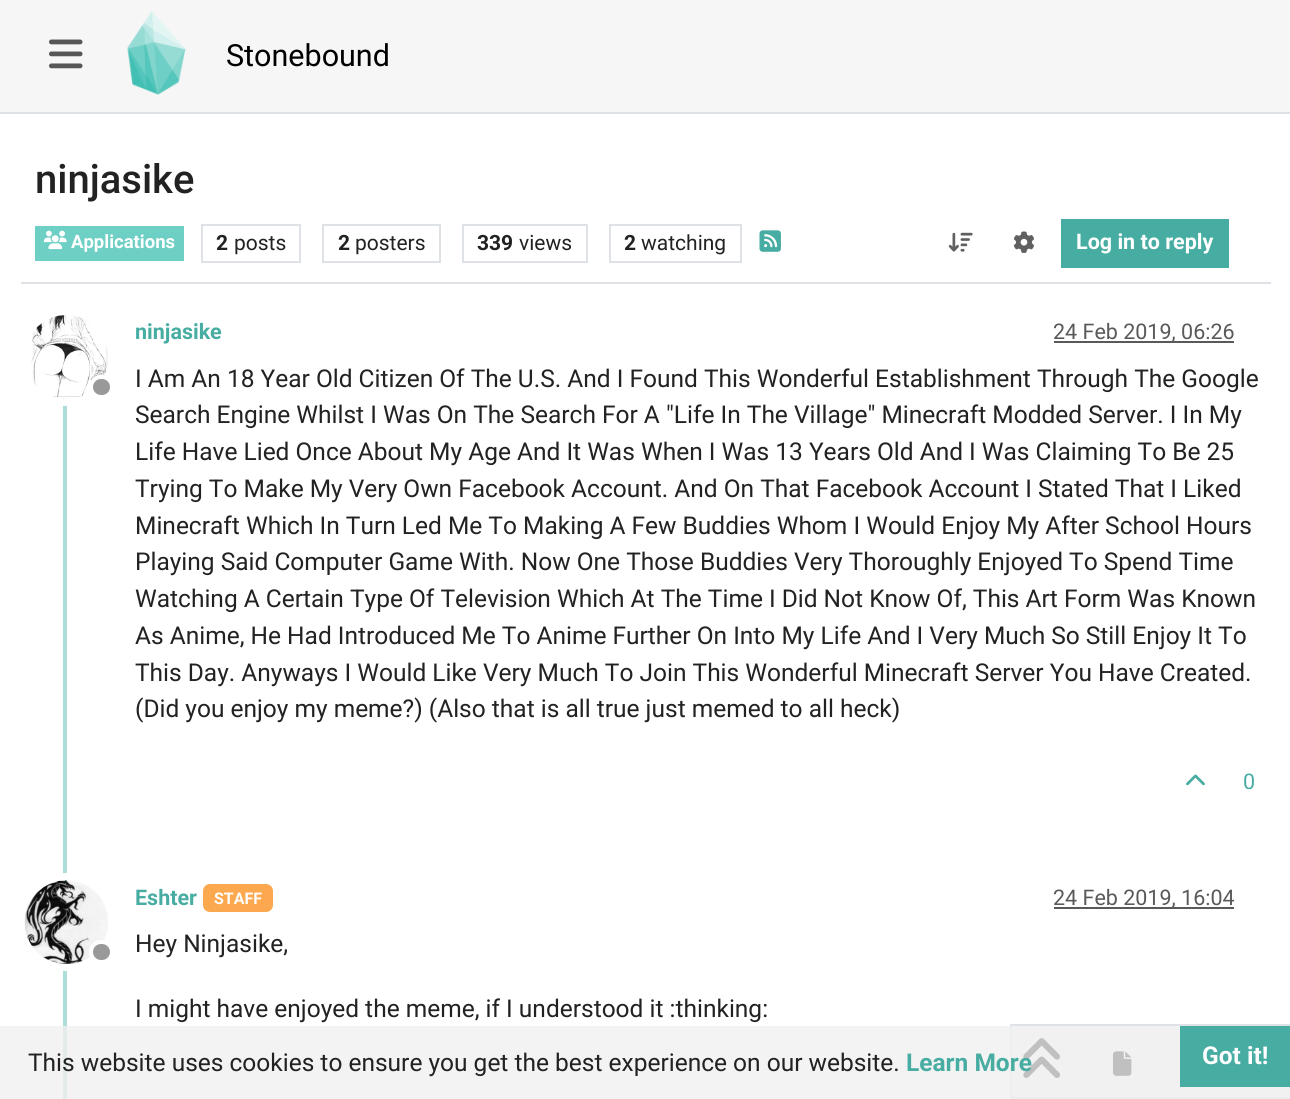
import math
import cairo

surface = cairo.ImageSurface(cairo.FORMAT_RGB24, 1290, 1099)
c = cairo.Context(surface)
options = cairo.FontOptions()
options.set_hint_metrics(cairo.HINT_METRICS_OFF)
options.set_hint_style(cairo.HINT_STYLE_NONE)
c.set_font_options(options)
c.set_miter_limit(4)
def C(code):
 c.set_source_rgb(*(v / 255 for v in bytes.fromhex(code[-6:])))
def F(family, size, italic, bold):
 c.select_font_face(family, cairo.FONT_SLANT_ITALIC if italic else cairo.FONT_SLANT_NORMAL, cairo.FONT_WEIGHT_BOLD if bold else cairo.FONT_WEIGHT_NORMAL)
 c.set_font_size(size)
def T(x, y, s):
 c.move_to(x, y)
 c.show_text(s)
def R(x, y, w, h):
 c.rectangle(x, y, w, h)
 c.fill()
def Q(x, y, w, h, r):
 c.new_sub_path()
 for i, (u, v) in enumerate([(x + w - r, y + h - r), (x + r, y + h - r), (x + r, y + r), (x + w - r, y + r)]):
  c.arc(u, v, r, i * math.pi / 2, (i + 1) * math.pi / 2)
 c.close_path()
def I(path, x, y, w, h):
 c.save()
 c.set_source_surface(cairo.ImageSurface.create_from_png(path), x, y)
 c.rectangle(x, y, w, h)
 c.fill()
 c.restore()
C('ffffff')
c.paint()
C('f6f6f6')
R(0,0,1290,112)
C('dee2e6')
R(0,112,1290,2)
I('1.png',49,39,34,30)
I('2.png',127,11,59,84)
F('Roboto',30.5,0,0)
C('000000')
T(226,66,'Stonebound')
C('dee2e6')
R(21,282,1250,2)
F('Roboto Medium',40,0,0)
C('222222')
T(35,193,'ninjasike')
C('6ecfc5')
R(35,226,149,35)
I('3.png',43,230,24,20)
F('Roboto',18.5,0,1)
C('ffffff')
T(71,248,'Applications')
c.rectangle(202,225,98,37)
C('dee2e6')
c.stroke()
F('Roboto',21,0,1)
C('222222')
T(216,250,'2')
F('Roboto',21,0,0)
T(234,250,'posts')
c.rectangle(323,225,117,37)
C('dee2e6')
c.stroke()
F('Roboto',21,0,1)
C('222222')
T(338,250,'2')
F('Roboto',21,0,0)
T(355,250,'posters')
c.rectangle(463,225,124,37)
C('dee2e6')
c.stroke()
F('Roboto',21,0,1)
C('222222')
T(477,250,'339')
F('Roboto',21,0,0)
T(519,250,'views')
c.rectangle(610,225,131,37)
C('dee2e6')
c.stroke()
F('Roboto',21,0,1)
C('222222')
T(624,250,'2')
F('Roboto',21,0,0)
T(641,250,'watching')
I('4.png',759,230,22,22)
I('5.png',948,232,25,20)
I('6.png',1013,231,21,22)
C('47aca1')
R(1061,219,168,49)
F('Roboto',21.5,0,1)
C('ffffff')
T(1076,249,'Log in to reply')
C('aeded9')
R(63,312,4,787)
c.new_path()
c.arc(67,357,45.5,0,2 * math.pi)
C('ffffff')
c.set_line_width(7)
c.stroke()
I('7.png',31,315,77,84)
C('999999')
Q(91,377,21,20,10)
c.fill_preserve()
C('ffffff')
c.set_line_width(4)
c.stroke()
C('47aca1')
T(135,339,'ninjasike')
C('595959')
R(1054,341,180,2)
F('Roboto',21.5,0,0)
T(1053,339,'24 Feb 2019, 06:26')
F('Roboto',24.5,0,0)
C('222222')
T(135,387,'I Am An 18 Year Old Citizen Of The U.S. And I Found This Wonderful Establishment Through The Google')
T(135,423,'Search Engine Whilst I Was On The Search For A "Life In The Village" Minecraft Modded Server. I In My')
T(135,460,'Life Have Lied Once About My Age And It Was When I Was 13 Years Old And I Was Claiming To Be 25')
T(135,497,'Trying To Make My Very Own Facebook Account. And On That Facebook Account I Stated That I Liked')
T(135,534,'Minecraft Which In Turn Led Me To Making A Few Buddies Whom I Would Enjoy My After School Hours')
T(135,570,'Playing Said Computer Game With. Now One Those Buddies Very Thoroughly Enjoyed To Spend Time')
T(135,607,'Watching A Certain Type Of Television Which At The Time I Did Not Know Of, This Art Form Was Known')
T(135,644,'As Anime, He Had Introduced Me To Anime Further On Into My Life And I Very Much So Still Enjoy It To')
T(135,681,'This Day. Anyways I Would Like Very Much To Join This Wonderful Minecraft Server You Have Created.')
T(135,717,'(Did you enjoy my meme?) (Also that is all true just memed to all heck)')
I('8.png',1186,774,19,12)
F('Roboto',21.5,0,0)
C('47aca1')
T(1243,789,'0')
c.new_path()
c.arc(67,922,45.5,0,2 * math.pi)
C('ffffff')
c.set_line_width(7)
c.stroke()
I('9.png',24,880,84,85)
C('999999')
Q(91,942,21,20,10)
c.fill_preserve()
C('ffffff')
c.set_line_width(4)
c.stroke()
F('Roboto',21.5,0,1)
C('47aca1')
T(135,905,'Eshter')
C('fca84e')
Q(203,884,70,28,7)
c.fill()
F('Roboto',16,0,1)
C('ffffff')
T(214,904,'STAFF')
C('595959')
R(1054,907,180,2)
F('Roboto',21.5,0,0)
T(1053,905,'24 Feb 2019, 16:04')
F('Roboto',24.5,0,0)
C('222222')
T(135,952,'Hey Ninjasike,')
T(135,1017,'I might have enjoyed the meme, if I understood it :thinking:')
C('f6f6f6')
c.rectangle(1011,1025,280,73)
c.fill_preserve()
C('dee2e6')
c.set_line_width(2)
c.stroke()
I('10.png',1023,1038,37,40)
I('11.png',1113,1051,19,25)
c.set_source_rgba(0.941,0.941,0.941,0.8)
R(0,1026,1290,73)
C('222222')
T(28,1071,'This website uses cookies to ensure you get the best experience on our website.')
F('Roboto',24.5,0,1)
C('47aca1')
T(906,1071,'Learn More')
R(1180,1026,110,61)
C('ffffff')
T(1202,1064,'Got it!')
surface.write_to_png('o.png')
